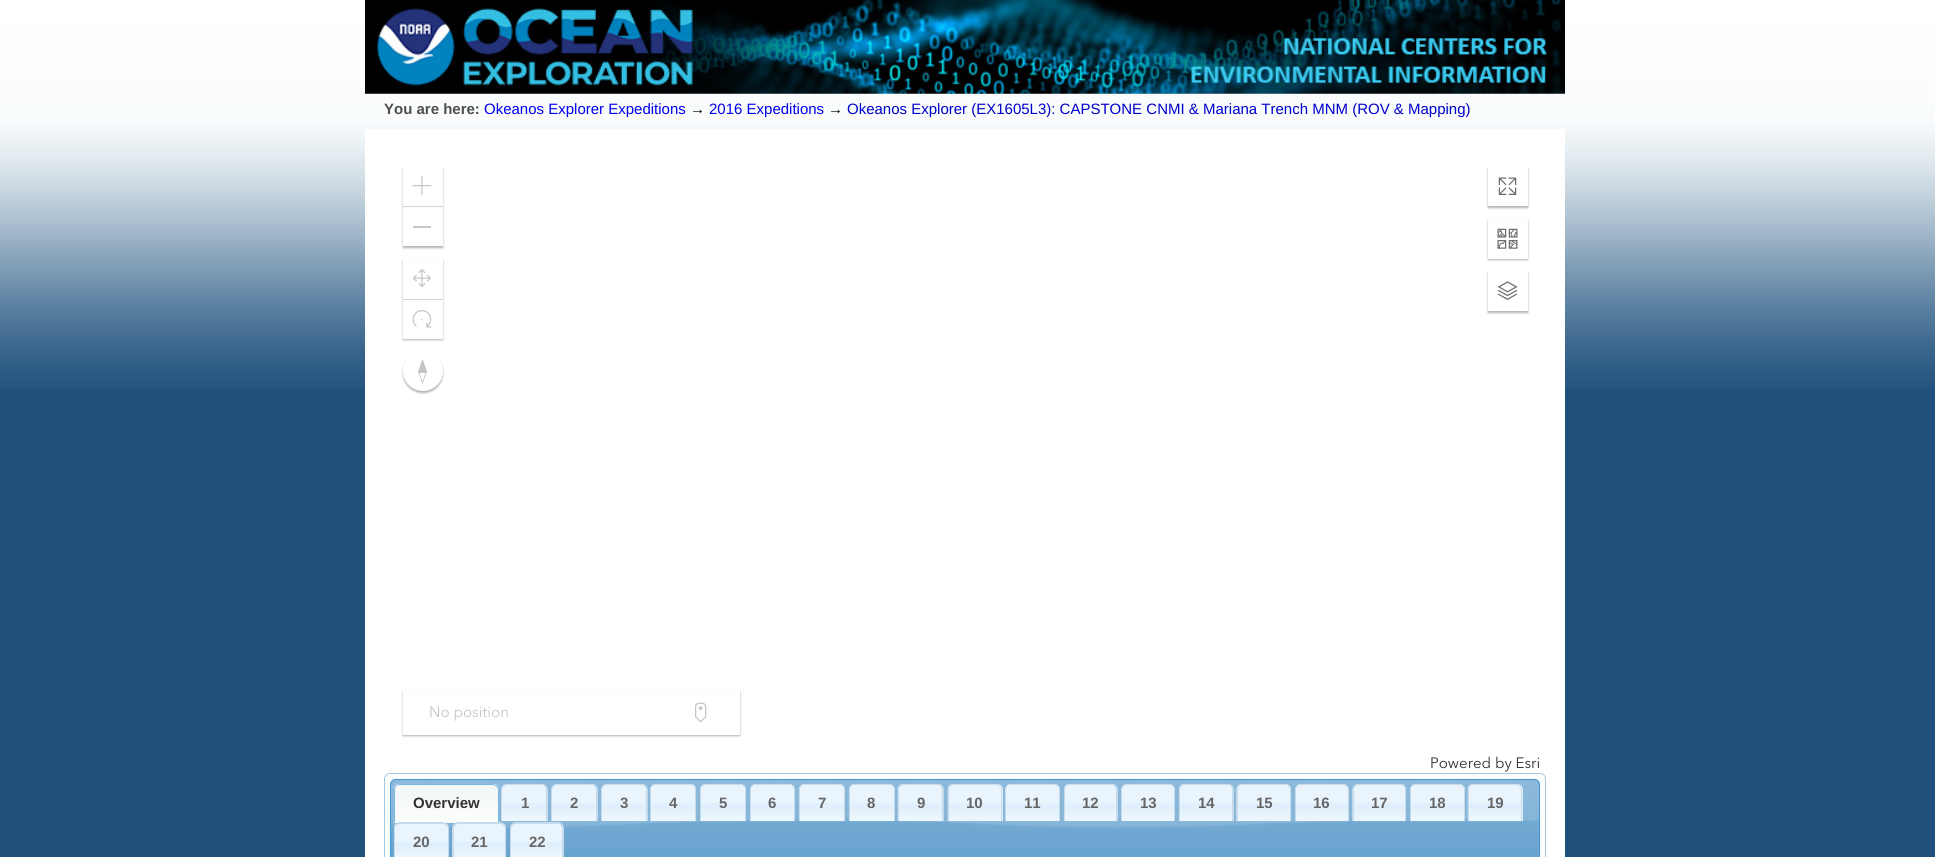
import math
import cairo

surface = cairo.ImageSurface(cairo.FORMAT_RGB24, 1935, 857)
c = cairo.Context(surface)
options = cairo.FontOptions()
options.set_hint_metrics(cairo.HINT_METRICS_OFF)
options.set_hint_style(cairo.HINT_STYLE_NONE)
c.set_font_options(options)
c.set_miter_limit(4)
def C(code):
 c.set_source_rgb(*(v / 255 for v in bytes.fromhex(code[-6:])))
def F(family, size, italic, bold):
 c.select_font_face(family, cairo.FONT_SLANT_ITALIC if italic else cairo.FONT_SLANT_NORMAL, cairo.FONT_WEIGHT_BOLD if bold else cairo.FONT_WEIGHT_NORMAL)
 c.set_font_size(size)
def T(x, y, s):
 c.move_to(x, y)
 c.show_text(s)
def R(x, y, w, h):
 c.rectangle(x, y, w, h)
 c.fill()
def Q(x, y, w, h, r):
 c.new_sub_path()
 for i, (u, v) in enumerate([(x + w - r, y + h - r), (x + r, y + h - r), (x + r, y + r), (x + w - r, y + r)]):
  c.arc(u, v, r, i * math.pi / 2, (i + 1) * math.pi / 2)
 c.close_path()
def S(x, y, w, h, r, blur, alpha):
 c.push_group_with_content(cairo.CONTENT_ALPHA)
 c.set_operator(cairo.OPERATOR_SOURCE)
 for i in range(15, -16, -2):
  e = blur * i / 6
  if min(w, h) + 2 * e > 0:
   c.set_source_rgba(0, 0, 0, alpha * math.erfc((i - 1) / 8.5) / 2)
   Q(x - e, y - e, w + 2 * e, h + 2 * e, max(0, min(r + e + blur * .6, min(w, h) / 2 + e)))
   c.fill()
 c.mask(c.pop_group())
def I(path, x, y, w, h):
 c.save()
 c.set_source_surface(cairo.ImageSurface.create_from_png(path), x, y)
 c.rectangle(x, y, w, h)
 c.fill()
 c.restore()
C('20517d')
c.paint()
I('1.png',0,0,1935,389)
I('2.png',365,0,1200,94)
F('Liberation Sans',15,0,1)
C('4e4e4e')
T(384,114,'You are here:')
F('Liberation Sans',15,0,0)
C('0000ee')
T(484,114,'Okeanos Explorer Expeditions')
C('000000')
T(690,114,'→')
C('0000ee')
T(709,114,'2016 Expeditions')
C('000000')
T(828,114,'→')
C('0000cc')
T(847,114,'Okeanos Explorer (EX1605L3): CAPSTONE CNMI & Mariana Trench MNM (ROV & Mapping)')
C('ffffff')
R(365,129,1200,728)
C('000000')
S(403,168,40,80,0,1,.3)
C('ffffff')
R(403,166,40,80)
I('3.png',412,176,20,19)
C('d4d4d4')
R(403,206,40,1)
C('c5c5c5')
R(413,226,18,2)
C('000000')
S(403,260,40,80,0,1,.3)
C('ffffff')
R(403,259,40,80)
I('4.png',412,269,19,19)
C('d4d4d4')
R(403,299,40,1)
I('5.png',412,310,20,18)
C('000000')
S(403,353,40,40,20,1,.3)
C('ffffff')
c.arc(423,371,20,0,2 * math.pi)
c.fill()
C('c5c5c5')
c.new_path()
c.move_to(422.5,359)
c.line_to(418,371.5)
c.line_to(422.5,384)
c.line_to(427,371.5)
c.close_path()
c.move_to(419.5,373)
c.line_to(425.5,373)
c.line_to(422.5,381.5)
c.close_path()
c.fill()
C('000000')
S(1488,168,40,40,0,1,.3)
C('ffffff')
R(1488,166,40,40)
I('6.png',1498,177,19,18)
C('000000')
S(1488,220,40,40,0,1,.3)
C('ffffff')
R(1488,219,40,40)
I('7.png',1497,228,21,21)
C('000000')
S(1488,273,40,40,0,1,.3)
C('ffffff')
R(1488,271,40,40)
I('8.png',1497,281,21,19)
c.save()
c.set_fill_rule(cairo.FILL_RULE_EVEN_ODD)
c.new_path()
c.move_to(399,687)
c.line_to(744,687)
c.line_to(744,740)
c.line_to(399,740)
c.close_path()
c.move_to(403,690)
c.line_to(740,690)
c.line_to(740,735)
c.line_to(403,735)
c.close_path()
c.clip()
C('000000')
S(403,691,337,45,0,1,.3)
c.restore()
F('Avenir Next',15,0,0)
C('c5c5c5')
T(429,717,'No position')
I('9.png',695,702,12,21)
C('323232')
T(1430,768,'Powered by Esri')
C('fcfdfd')
Q(384.5,773.5,1161,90,5.5)
c.fill_preserve()
C('a6c9e2')
c.set_line_width(1)
c.stroke()
I('10.png',390,778,1150,79)
Q(390.5,779.5,1149,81,5.5)
C('4297d7')
c.stroke()
C('f5f8f9')
c.new_path()
c.move_to(400,784)
c.line_to(493,784)
c.curve_to(496.5,784,499,786.5,499,790)
c.line_to(499,823)
c.line_to(394,823)
c.line_to(394,790)
c.curve_to(394,786.5,396.5,784,400,784)
c.close_path()
c.fill()
I('11.png',393,783,106,39)
C('79b7e7')
c.set_fill_rule(cairo.FILL_RULE_EVEN_ODD)
c.new_path()
c.move_to(400,784)
c.line_to(492,784)
c.curve_to(496,784,499,787,499,790)
c.line_to(499,822)
c.line_to(394,822)
c.line_to(394,790)
c.curve_to(394,787,397,784,400,784)
c.close_path()
c.move_to(400,785)
c.line_to(492,785)
c.curve_to(495,785,498,787,498,790)
c.line_to(498,822)
c.line_to(395,822)
c.line_to(395,790)
c.curve_to(395,787,397,785,400,785)
c.close_path()
c.fill()
F('Liberation Sans',15,0,1)
C('323232')
T(413,808,'Overview')
I('12.png',501,783,47,39)
C('c5dbec')
c.new_path()
c.move_to(508,784)
c.line_to(541,784)
c.curve_to(545,784,548,787,548,790)
c.line_to(548,821)
c.line_to(501,821)
c.line_to(501,790)
c.curve_to(501,787,504,784,508,784)
c.close_path()
c.move_to(508,785)
c.line_to(541,785)
c.curve_to(544,785,546,787,546,790)
c.line_to(546,821)
c.line_to(502,821)
c.line_to(502,790)
c.curve_to(502,787,505,785,508,785)
c.close_path()
c.fill()
C('666666')
T(521,808,'1')
I('12.png',551,783,47,39)
C('c5dbec')
c.new_path()
c.move_to(558,784)
c.line_to(591,784)
c.curve_to(595,784,598,787,598,790)
c.line_to(598,821)
c.line_to(551,821)
c.line_to(551,790)
c.curve_to(551,787,554,784,558,784)
c.close_path()
c.move_to(558,785)
c.line_to(591,785)
c.curve_to(594,785,596,787,596,790)
c.line_to(596,821)
c.line_to(552,821)
c.line_to(552,790)
c.curve_to(552,787,555,785,558,785)
c.close_path()
c.fill()
C('666666')
T(570,808,'2')
I('12.png',601,783,47,39)
C('c5dbec')
c.new_path()
c.move_to(608,784)
c.line_to(641,784)
c.curve_to(645,784,648,787,648,790)
c.line_to(648,821)
c.line_to(601,821)
c.line_to(601,790)
c.curve_to(601,787,604,784,608,784)
c.close_path()
c.move_to(608,785)
c.line_to(641,785)
c.curve_to(644,785,646,787,646,790)
c.line_to(646,821)
c.line_to(602,821)
c.line_to(602,790)
c.curve_to(602,787,605,785,608,785)
c.close_path()
c.fill()
C('666666')
T(620,808,'3')
I('13.png',650,783,47,39)
C('c5dbec')
c.new_path()
c.move_to(656,784)
c.line_to(690,784)
c.curve_to(693,784,696,787,696,790)
c.line_to(696,821)
c.line_to(650,821)
c.line_to(650,790)
c.curve_to(650,787,653,784,656,784)
c.close_path()
c.move_to(656,785)
c.line_to(690,785)
c.curve_to(693,785,695,787,695,790)
c.line_to(695,821)
c.line_to(651,821)
c.line_to(651,790)
c.curve_to(651,787,653,785,656,785)
c.close_path()
c.fill()
C('666666')
T(669,808,'4')
I('14.png',700,783,47,39)
C('c5dbec')
c.new_path()
c.move_to(706,784)
c.line_to(740,784)
c.curve_to(743,784,746,787,746,790)
c.line_to(746,821)
c.line_to(700,821)
c.line_to(700,790)
c.curve_to(700,787,703,784,706,784)
c.close_path()
c.move_to(706,785)
c.line_to(740,785)
c.curve_to(743,785,745,787,745,790)
c.line_to(745,821)
c.line_to(701,821)
c.line_to(701,790)
c.curve_to(701,787,703,785,706,785)
c.close_path()
c.fill()
C('666666')
T(719,808,'5')
I('15.png',750,783,45,39)
C('c5dbec')
c.new_path()
c.move_to(756,784)
c.line_to(789,784)
c.curve_to(792,784,795,787,795,790)
c.line_to(795,821)
c.line_to(750,821)
c.line_to(750,790)
c.curve_to(750,787,753,784,756,784)
c.close_path()
c.move_to(756,785)
c.line_to(789,785)
c.curve_to(792,785,794,787,794,790)
c.line_to(794,821)
c.line_to(751,821)
c.line_to(751,790)
c.curve_to(751,787,753,785,756,785)
c.close_path()
c.fill()
C('666666')
T(768,808,'6')
I('16.png',798,783,47,39)
C('c5dbec')
c.new_path()
c.move_to(805,784)
c.line_to(839,784)
c.curve_to(842,784,845,787,845,790)
c.line_to(845,821)
c.line_to(799,821)
c.line_to(799,790)
c.curve_to(799,787,802,784,805,784)
c.close_path()
c.move_to(805,785)
c.line_to(839,785)
c.curve_to(842,785,844,787,844,790)
c.line_to(844,821)
c.line_to(800,821)
c.line_to(800,790)
c.curve_to(800,787,802,785,805,785)
c.close_path()
c.fill()
C('666666')
T(818,808,'7')
I('17.png',848,783,47,39)
C('c5dbec')
c.new_path()
c.move_to(855,784)
c.line_to(889,784)
c.curve_to(892,784,895,787,895,790)
c.line_to(895,821)
c.line_to(849,821)
c.line_to(849,790)
c.curve_to(849,787,852,784,855,784)
c.close_path()
c.move_to(855,785)
c.line_to(889,785)
c.curve_to(892,785,894,787,894,790)
c.line_to(894,821)
c.line_to(850,821)
c.line_to(850,790)
c.curve_to(850,787,852,785,855,785)
c.close_path()
c.fill()
C('666666')
T(867,808,'8')
I('18.png',897,783,47,39)
C('c5dbec')
c.new_path()
c.move_to(904,784)
c.line_to(938,784)
c.curve_to(941,784,944,787,944,790)
c.line_to(944,821)
c.line_to(898,821)
c.line_to(898,790)
c.curve_to(898,787,900,784,904,784)
c.close_path()
c.move_to(904,785)
c.line_to(938,785)
c.curve_to(940,785,942,787,942,790)
c.line_to(942,821)
c.line_to(899,821)
c.line_to(899,790)
c.curve_to(899,787,901,785,904,785)
c.close_path()
c.fill()
C('666666')
T(917,808,'9')
C('dfeffc')
c.new_path()
c.move_to(954,784)
c.line_to(997,784)
c.curve_to(1000.5,784,1003,786.5,1003,790)
c.line_to(1003,821)
c.line_to(948,821)
c.line_to(948,790)
c.curve_to(948,786.5,950.5,784,954,784)
c.close_path()
c.fill()
I('19.png',947,783,56,39)
C('c5dbec')
c.new_path()
c.move_to(954,784)
c.line_to(996,784)
c.curve_to(1000,784,1002,787,1002,790)
c.line_to(1002,821)
c.line_to(948,821)
c.line_to(948,790)
c.curve_to(948,787,950,784,954,784)
c.close_path()
c.move_to(954,785)
c.line_to(996,785)
c.curve_to(999,785,1001,787,1001,790)
c.line_to(1001,821)
c.line_to(949,821)
c.line_to(949,790)
c.curve_to(949,787,951,785,954,785)
c.close_path()
c.fill()
C('666666')
T(966,808,'10')
I('20.png',1005,783,55,39)
C('c5dbec')
c.new_path()
c.move_to(1011,784)
c.line_to(1054,784)
c.curve_to(1057,784,1060,787,1060,790)
c.line_to(1060,821)
c.line_to(1005,821)
c.line_to(1005,790)
c.curve_to(1005,787,1008,784,1011,784)
c.close_path()
c.move_to(1011,785)
c.line_to(1054,785)
c.curve_to(1057,785,1059,787,1059,790)
c.line_to(1059,821)
c.line_to(1006,821)
c.line_to(1006,790)
c.curve_to(1006,787,1008,785,1011,785)
c.close_path()
c.fill()
C('666666')
T(1024,808,'11')
I('21.png',1063,783,55,39)
C('c5dbec')
c.new_path()
c.move_to(1070,784)
c.line_to(1111,784)
c.curve_to(1115,784,1118,787,1118,790)
c.line_to(1118,821)
c.line_to(1064,821)
c.line_to(1064,790)
c.curve_to(1064,787,1067,784,1070,784)
c.close_path()
c.move_to(1070,785)
c.line_to(1111,785)
c.curve_to(1114,785,1116,787,1116,790)
c.line_to(1116,821)
c.line_to(1065,821)
c.line_to(1065,790)
c.curve_to(1065,787,1067,785,1070,785)
c.close_path()
c.fill()
C('666666')
T(1082,808,'12')
I('22.png',1121,783,54,39)
C('c5dbec')
c.new_path()
c.move_to(1128,784)
c.line_to(1169,784)
c.curve_to(1172,784,1175,787,1175,790)
c.line_to(1175,821)
c.line_to(1121,821)
c.line_to(1121,790)
c.curve_to(1121,787,1124,784,1128,784)
c.close_path()
c.move_to(1128,785)
c.line_to(1169,785)
c.curve_to(1172,785,1174,787,1174,790)
c.line_to(1174,821)
c.line_to(1122,821)
c.line_to(1122,790)
c.curve_to(1122,787,1125,785,1128,785)
c.close_path()
c.fill()
C('666666')
T(1140,808,'13')
I('23.png',1178,783,56,39)
C('c5dbec')
c.new_path()
c.move_to(1185,784)
c.line_to(1228,784)
c.curve_to(1231,784,1234,787,1234,790)
c.line_to(1234,821)
c.line_to(1179,821)
c.line_to(1179,790)
c.curve_to(1179,787,1182,784,1185,784)
c.close_path()
c.move_to(1185,785)
c.line_to(1228,785)
c.curve_to(1230,785,1232,787,1232,790)
c.line_to(1232,821)
c.line_to(1180,821)
c.line_to(1180,790)
c.curve_to(1180,787,1182,785,1185,785)
c.close_path()
c.fill()
C('666666')
T(1198,808,'14')
I('24.png',1236,783,56,39)
C('c5dbec')
c.new_path()
c.move_to(1242,784)
c.line_to(1285,784)
c.curve_to(1288,784,1291,787,1291,790)
c.line_to(1291,821)
c.line_to(1236,821)
c.line_to(1236,790)
c.curve_to(1236,787,1239,784,1242,784)
c.close_path()
c.move_to(1242,785)
c.line_to(1285,785)
c.curve_to(1288,785,1290,787,1290,790)
c.line_to(1290,821)
c.line_to(1238,821)
c.line_to(1238,790)
c.curve_to(1238,787,1240,785,1242,785)
c.close_path()
c.fill()
C('666666')
T(1256,808,'15')
I('25.png',1295,783,54,39)
C('c5dbec')
c.new_path()
c.move_to(1301,784)
c.line_to(1342,784)
c.curve_to(1346,784,1349,787,1349,790)
c.line_to(1349,821)
c.line_to(1295,821)
c.line_to(1295,790)
c.curve_to(1295,787,1298,784,1301,784)
c.close_path()
c.move_to(1301,785)
c.line_to(1342,785)
c.curve_to(1345,785,1348,787,1348,790)
c.line_to(1348,821)
c.line_to(1296,821)
c.line_to(1296,790)
c.curve_to(1296,787,1298,785,1301,785)
c.close_path()
c.fill()
C('666666')
T(1313,808,'16')
I('26.png',1352,783,55,39)
C('c5dbec')
c.new_path()
c.move_to(1359,784)
c.line_to(1400,784)
c.curve_to(1403,784,1406,787,1406,790)
c.line_to(1406,821)
c.line_to(1352,821)
c.line_to(1352,790)
c.curve_to(1352,787,1355,784,1359,784)
c.close_path()
c.move_to(1359,785)
c.line_to(1400,785)
c.curve_to(1403,785,1405,787,1405,790)
c.line_to(1405,821)
c.line_to(1354,821)
c.line_to(1354,790)
c.curve_to(1354,787,1356,785,1359,785)
c.close_path()
c.fill()
C('666666')
T(1371,808,'17')
I('27.png',1410,783,55,39)
C('c5dbec')
c.new_path()
c.move_to(1416,784)
c.line_to(1459,784)
c.curve_to(1462,784,1465,787,1465,790)
c.line_to(1465,821)
c.line_to(1410,821)
c.line_to(1410,790)
c.curve_to(1410,787,1413,784,1416,784)
c.close_path()
c.move_to(1416,785)
c.line_to(1459,785)
c.curve_to(1462,785,1464,787,1464,790)
c.line_to(1464,821)
c.line_to(1411,821)
c.line_to(1411,790)
c.curve_to(1411,787,1413,785,1416,785)
c.close_path()
c.fill()
C('666666')
T(1429,808,'18')
C('dfeffc')
c.new_path()
c.move_to(1474,784)
c.line_to(1517,784)
c.curve_to(1520.5,784,1523,786.5,1523,790)
c.line_to(1523,821)
c.line_to(1468,821)
c.line_to(1468,790)
c.curve_to(1468,786.5,1470.5,784,1474,784)
c.close_path()
c.fill()
I('28.png',1467,783,56,39)
C('c5dbec')
c.new_path()
c.move_to(1474,784)
c.line_to(1516,784)
c.curve_to(1520,784,1522,787,1522,790)
c.line_to(1522,821)
c.line_to(1468,821)
c.line_to(1468,790)
c.curve_to(1468,787,1470,784,1474,784)
c.close_path()
c.move_to(1474,785)
c.line_to(1516,785)
c.curve_to(1519,785,1521,787,1521,790)
c.line_to(1521,821)
c.line_to(1469,821)
c.line_to(1469,790)
c.curve_to(1469,787,1471,785,1474,785)
c.close_path()
c.fill()
C('666666')
T(1487,808,'19')
I('29.png',393,823,56,34)
C('c5dbec')
c.new_path()
c.move_to(400,822)
c.line_to(442,822)
c.curve_to(446,822,449,825,449,829)
c.line_to(449,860)
c.line_to(394,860)
c.line_to(394,829)
c.curve_to(394,825,397,822,400,822)
c.close_path()
c.move_to(400,824)
c.line_to(442,824)
c.curve_to(445,824,448,826,448,829)
c.line_to(448,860)
c.line_to(395,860)
c.line_to(395,829)
c.curve_to(395,826,397,824,400,824)
c.close_path()
c.fill()
C('666666')
T(413,847,'20')
I('30.png',452,822,55,35)
C('c5dbec')
c.new_path()
c.move_to(459,822)
c.line_to(500,822)
c.curve_to(503,822,506,825,506,829)
c.line_to(506,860)
c.line_to(452,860)
c.line_to(452,829)
c.curve_to(452,825,455,822,459,822)
c.close_path()
c.move_to(459,824)
c.line_to(500,824)
c.curve_to(503,824,505,826,505,829)
c.line_to(505,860)
c.line_to(454,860)
c.line_to(454,829)
c.curve_to(454,826,456,824,459,824)
c.close_path()
c.fill()
C('666666')
T(471,847,'21')
I('31.png',510,822,54,35)
C('c5dbec')
c.new_path()
c.move_to(516,822)
c.line_to(558,822)
c.curve_to(561,822,564,825,564,829)
c.line_to(564,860)
c.line_to(510,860)
c.line_to(510,829)
c.curve_to(510,825,513,822,516,822)
c.close_path()
c.move_to(516,824)
c.line_to(558,824)
c.curve_to(560,824,562,826,562,829)
c.line_to(562,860)
c.line_to(511,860)
c.line_to(511,829)
c.curve_to(511,826,513,824,516,824)
c.close_path()
c.fill()
C('666666')
T(529,847,'22')
surface.write_to_png('o.png')
